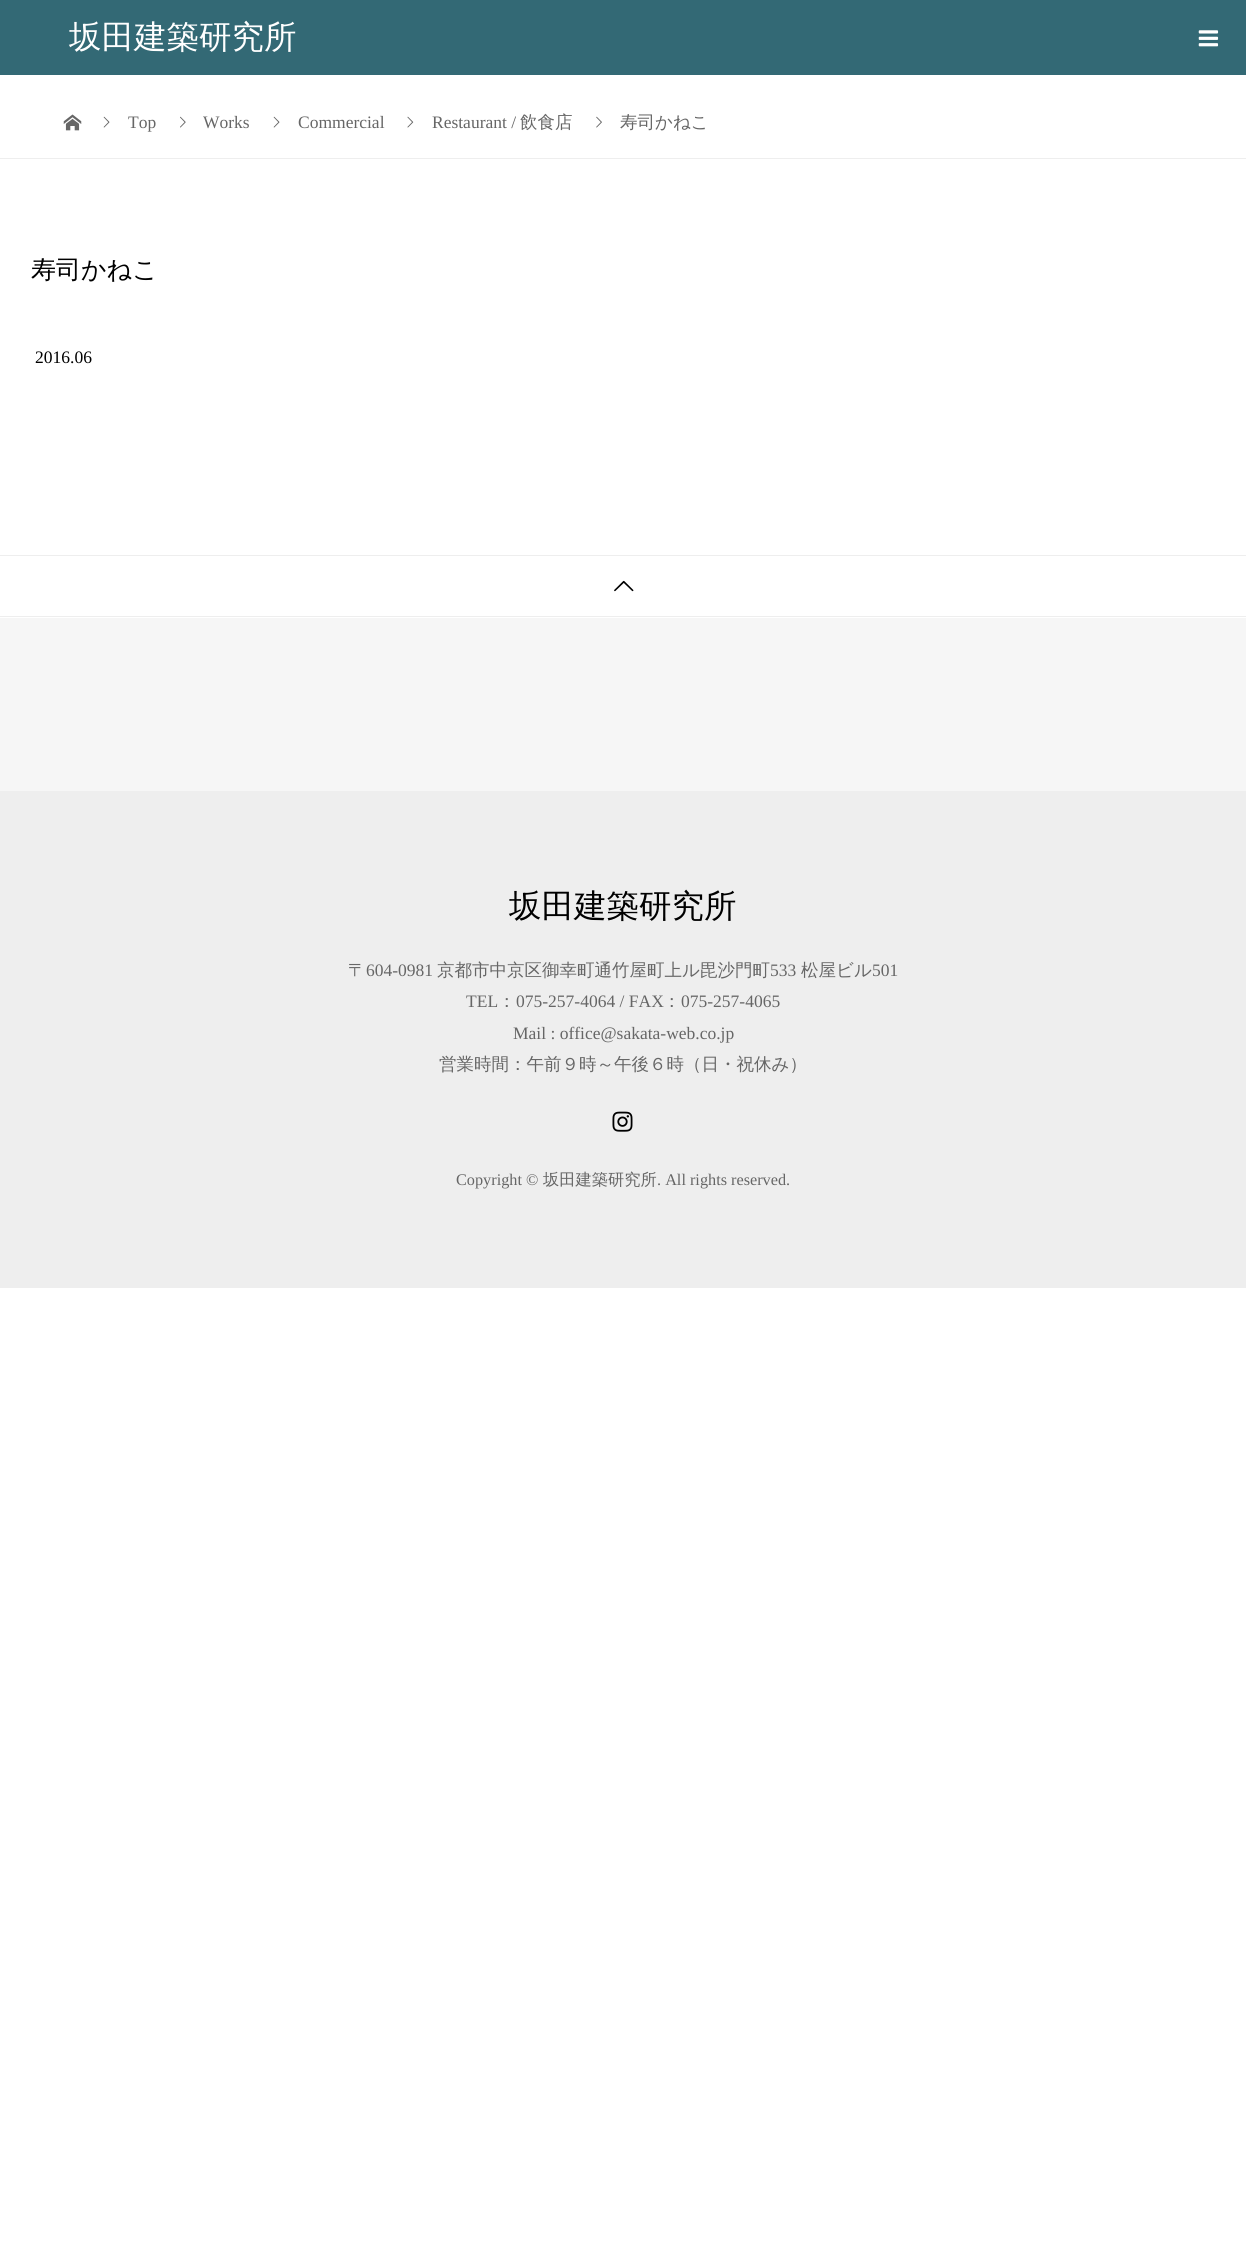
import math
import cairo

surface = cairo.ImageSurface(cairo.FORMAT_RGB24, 1246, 2246)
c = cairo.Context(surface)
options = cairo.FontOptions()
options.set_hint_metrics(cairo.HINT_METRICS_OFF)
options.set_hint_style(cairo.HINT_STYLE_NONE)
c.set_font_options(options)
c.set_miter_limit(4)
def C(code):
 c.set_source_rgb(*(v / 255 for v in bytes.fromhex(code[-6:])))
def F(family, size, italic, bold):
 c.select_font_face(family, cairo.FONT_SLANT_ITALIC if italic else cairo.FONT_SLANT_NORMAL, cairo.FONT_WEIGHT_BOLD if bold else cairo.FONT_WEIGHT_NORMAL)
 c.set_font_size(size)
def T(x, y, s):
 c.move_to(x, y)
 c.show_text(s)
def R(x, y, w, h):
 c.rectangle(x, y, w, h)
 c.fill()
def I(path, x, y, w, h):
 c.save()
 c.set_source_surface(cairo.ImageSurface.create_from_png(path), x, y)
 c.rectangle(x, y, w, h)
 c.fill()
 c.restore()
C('ffffff')
c.paint()
C('336975')
R(0,0,1246,75)
F('WenQuanYi Zen Hei Medium',32.5,0,0)
C('ffffff')
T(69,48,'坂田建築研究所')
I('1.png',1198,30,21,17)
C('eeeeee')
R(0,158,1246,1)
I('2.png',63,114,19,17)
I('3.png',103,116,7,12)
F('Liberation Serif',17.5,0,0)
C('666666')
T(128,128,'Top')
I('4.png',180,116,6,12)
T(203,128,'Works')
I('3.png',273,116,7,12)
T(298,128,'Commercial')
I('5.png',407,116,7,12)
T(432,128,'Restaurant /')
F('WenQuanYi Zen Hei Medium',17.5,0,0)
T(520,128,'飲食店')
I('6.png',596,116,6,12)
T(620,128,'寿司かねこ')
F('WenQuanYi Zen Hei Medium',25,0,0)
C('000000')
T(31,278,'寿司かねこ')
F('Liberation Serif',17.5,0,0)
T(35,363,'2016.06')
C('eeeeee')
R(0,791,1246,497)
R(0,555,1246,1)
R(0,616,1246,1)
I('7.png',614,580,20,12)
C('f6f6f6')
R(0,618,1246,173)
F('WenQuanYi Zen Hei Medium',32.5,0,0)
C('000000')
T(509,917,'坂田建築研究所')
F('WenQuanYi Zen Hei Medium',17.5,0,0)
C('666666')
T(348,976,'〒')
F('Liberation Serif',17.5,0,0)
T(366,976,'604-0981')
F('WenQuanYi Zen Hei Medium',17.5,0,0)
T(437,976,'京都市中京区御幸町通竹屋町上ル毘沙門町')
F('Liberation Serif',17.5,0,0)
T(770,976,'533')
F('WenQuanYi Zen Hei Medium',17.5,0,0)
T(801,976,'松屋ビル')
F('Liberation Serif',17.5,0,0)
T(872,976,'501')
T(466,1007,'TEL')
F('WenQuanYi Zen Hei Medium',17.5,0,0)
T(498,1007,'：')
F('Liberation Serif',17.5,0,0)
T(516,1007,'075-257-4064 / FAX')
F('WenQuanYi Zen Hei Medium',17.5,0,0)
T(663,1007,'：')
F('Liberation Serif',17.5,0,0)
T(681,1007,'075-257-4065')
T(513,1039,'Mail : office@sakata-web.co.jp')
F('WenQuanYi Zen Hei Medium',17.5,0,0)
T(439,1070,'営業時間：午前９時～午後６時（日・祝休み）')
I('8.png',612,1111,21,21)
F('Liberation Serif',16.25,0,0)
T(456,1185,'Copyright ©')
F('WenQuanYi Zen Hei Medium',16.25,0,0)
T(543,1185,'坂田建築研究所')
F('Liberation Serif',16.25,0,0)
T(657,1185,'. All rights reserved.')
surface.write_to_png('o.png')
